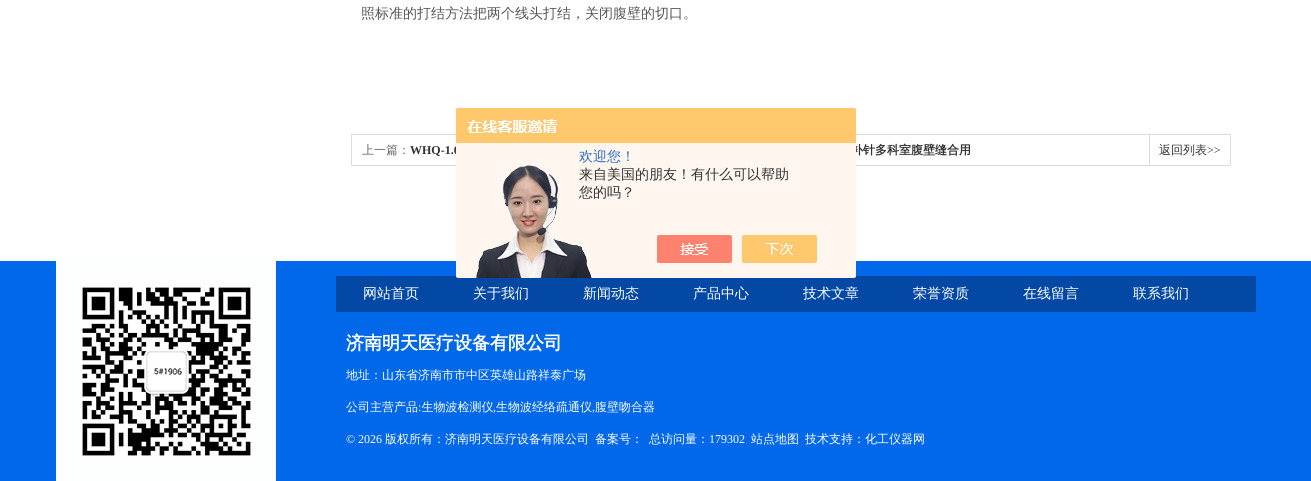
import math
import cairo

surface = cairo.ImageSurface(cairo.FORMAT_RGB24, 1311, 481)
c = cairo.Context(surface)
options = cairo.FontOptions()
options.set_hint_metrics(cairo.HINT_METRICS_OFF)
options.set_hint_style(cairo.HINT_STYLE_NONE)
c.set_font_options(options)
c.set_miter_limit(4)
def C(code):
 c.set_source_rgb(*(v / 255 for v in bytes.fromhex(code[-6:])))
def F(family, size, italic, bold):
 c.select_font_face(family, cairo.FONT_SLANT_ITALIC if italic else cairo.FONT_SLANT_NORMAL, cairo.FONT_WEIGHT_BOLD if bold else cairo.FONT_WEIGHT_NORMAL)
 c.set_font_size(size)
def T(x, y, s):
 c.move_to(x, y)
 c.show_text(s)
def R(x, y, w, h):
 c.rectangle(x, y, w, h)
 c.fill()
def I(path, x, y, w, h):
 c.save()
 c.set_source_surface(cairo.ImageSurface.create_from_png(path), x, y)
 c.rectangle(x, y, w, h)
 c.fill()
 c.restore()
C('ffffff')
c.paint()
F('WenQuanYi Zen Hei Medium',14,0,0)
C('555555')
T(361,18,'照标准的打结方法把两个线头打结，关闭腹壁的切口。')
c.rectangle(351.5,134.5,879,31)
C('dddddd')
c.set_line_width(1)
c.stroke()
F('WenQuanYi Zen Hei Medium',12,0,0)
C('666666')
T(362,154,'上一篇：')
F('Liberation Serif',12,0,1)
C('333333')
T(410,154,'WHQ-1.6')
F('WenQuanYi Zen Hei',12,0,1)
T(851,154,'补针多科室腹壁缝合用')
C('dddddd')
R(1149,135,1,30)
F('WenQuanYi Zen Hei Medium',12,0,0)
C('333333')
T(1159,154,'返回列表')
F('Liberation Serif',12,0,0)
T(1207,154,'>>')
C('0168e9')
R(0,261,1311,220)
C('0248a4')
R(336,276,920,36)
I('1.png',456,108,400,170)
F('WenQuanYi Zen Hei Medium',14,0,0)
C('2e6ec6')
T(579,161,'欢迎您！')
C('333333')
T(579,179,'来自美国的朋友！有什么可以帮助')
T(579,197,'您的吗？')
I('2.png',56,261,220,220)
C('ffffff')
T(363,298,'网站首页')
T(473,298,'关于我们')
T(583,298,'新闻动态')
T(693,298,'产品中心')
T(803,298,'技术文章')
T(913,298,'荣誉资质')
T(1023,298,'在线留言')
T(1133,298,'联系我们')
F('WenQuanYi Zen Hei',18,0,1)
T(346,349,'济南明天医疗设备有限公司')
c.save()
c.rectangle(346,364,900,32)
c.clip()
F('WenQuanYi Zen Hei Medium',12,0,0)
T(346,379,'地址：山东省济南市市中区英雄山路祥泰广场')
c.restore()
F('WenQuanYi Zen Hei Medium',12,0,0)
T(346,411,'公司主营产品 生物波检测仪')
F('Liberation Serif',12,0,0)
T(493,411,',')
F('WenQuanYi Zen Hei Medium',12,0,0)
T(496,411,'生物波经络疏通仪')
T(595,411,'腹壁吻合器')
F('Liberation Serif',12,0,0)
T(418,411,':')
T(592,411,',')
T(346,443,'© 2026')
F('WenQuanYi Zen Hei Medium',12,0,0)
T(385,443,'版权所有：济南明天医疗设备有限公司')
T(595,443,'备案号：')
T(649,443,'总访问量：')
F('Liberation Serif',12,0,0)
T(709,443,'179302')
F('WenQuanYi Zen Hei Medium',12,0,0)
T(751,443,'站点地图')
T(805,443,'技术支持：化工仪器网')
surface.write_to_png('o.png')
